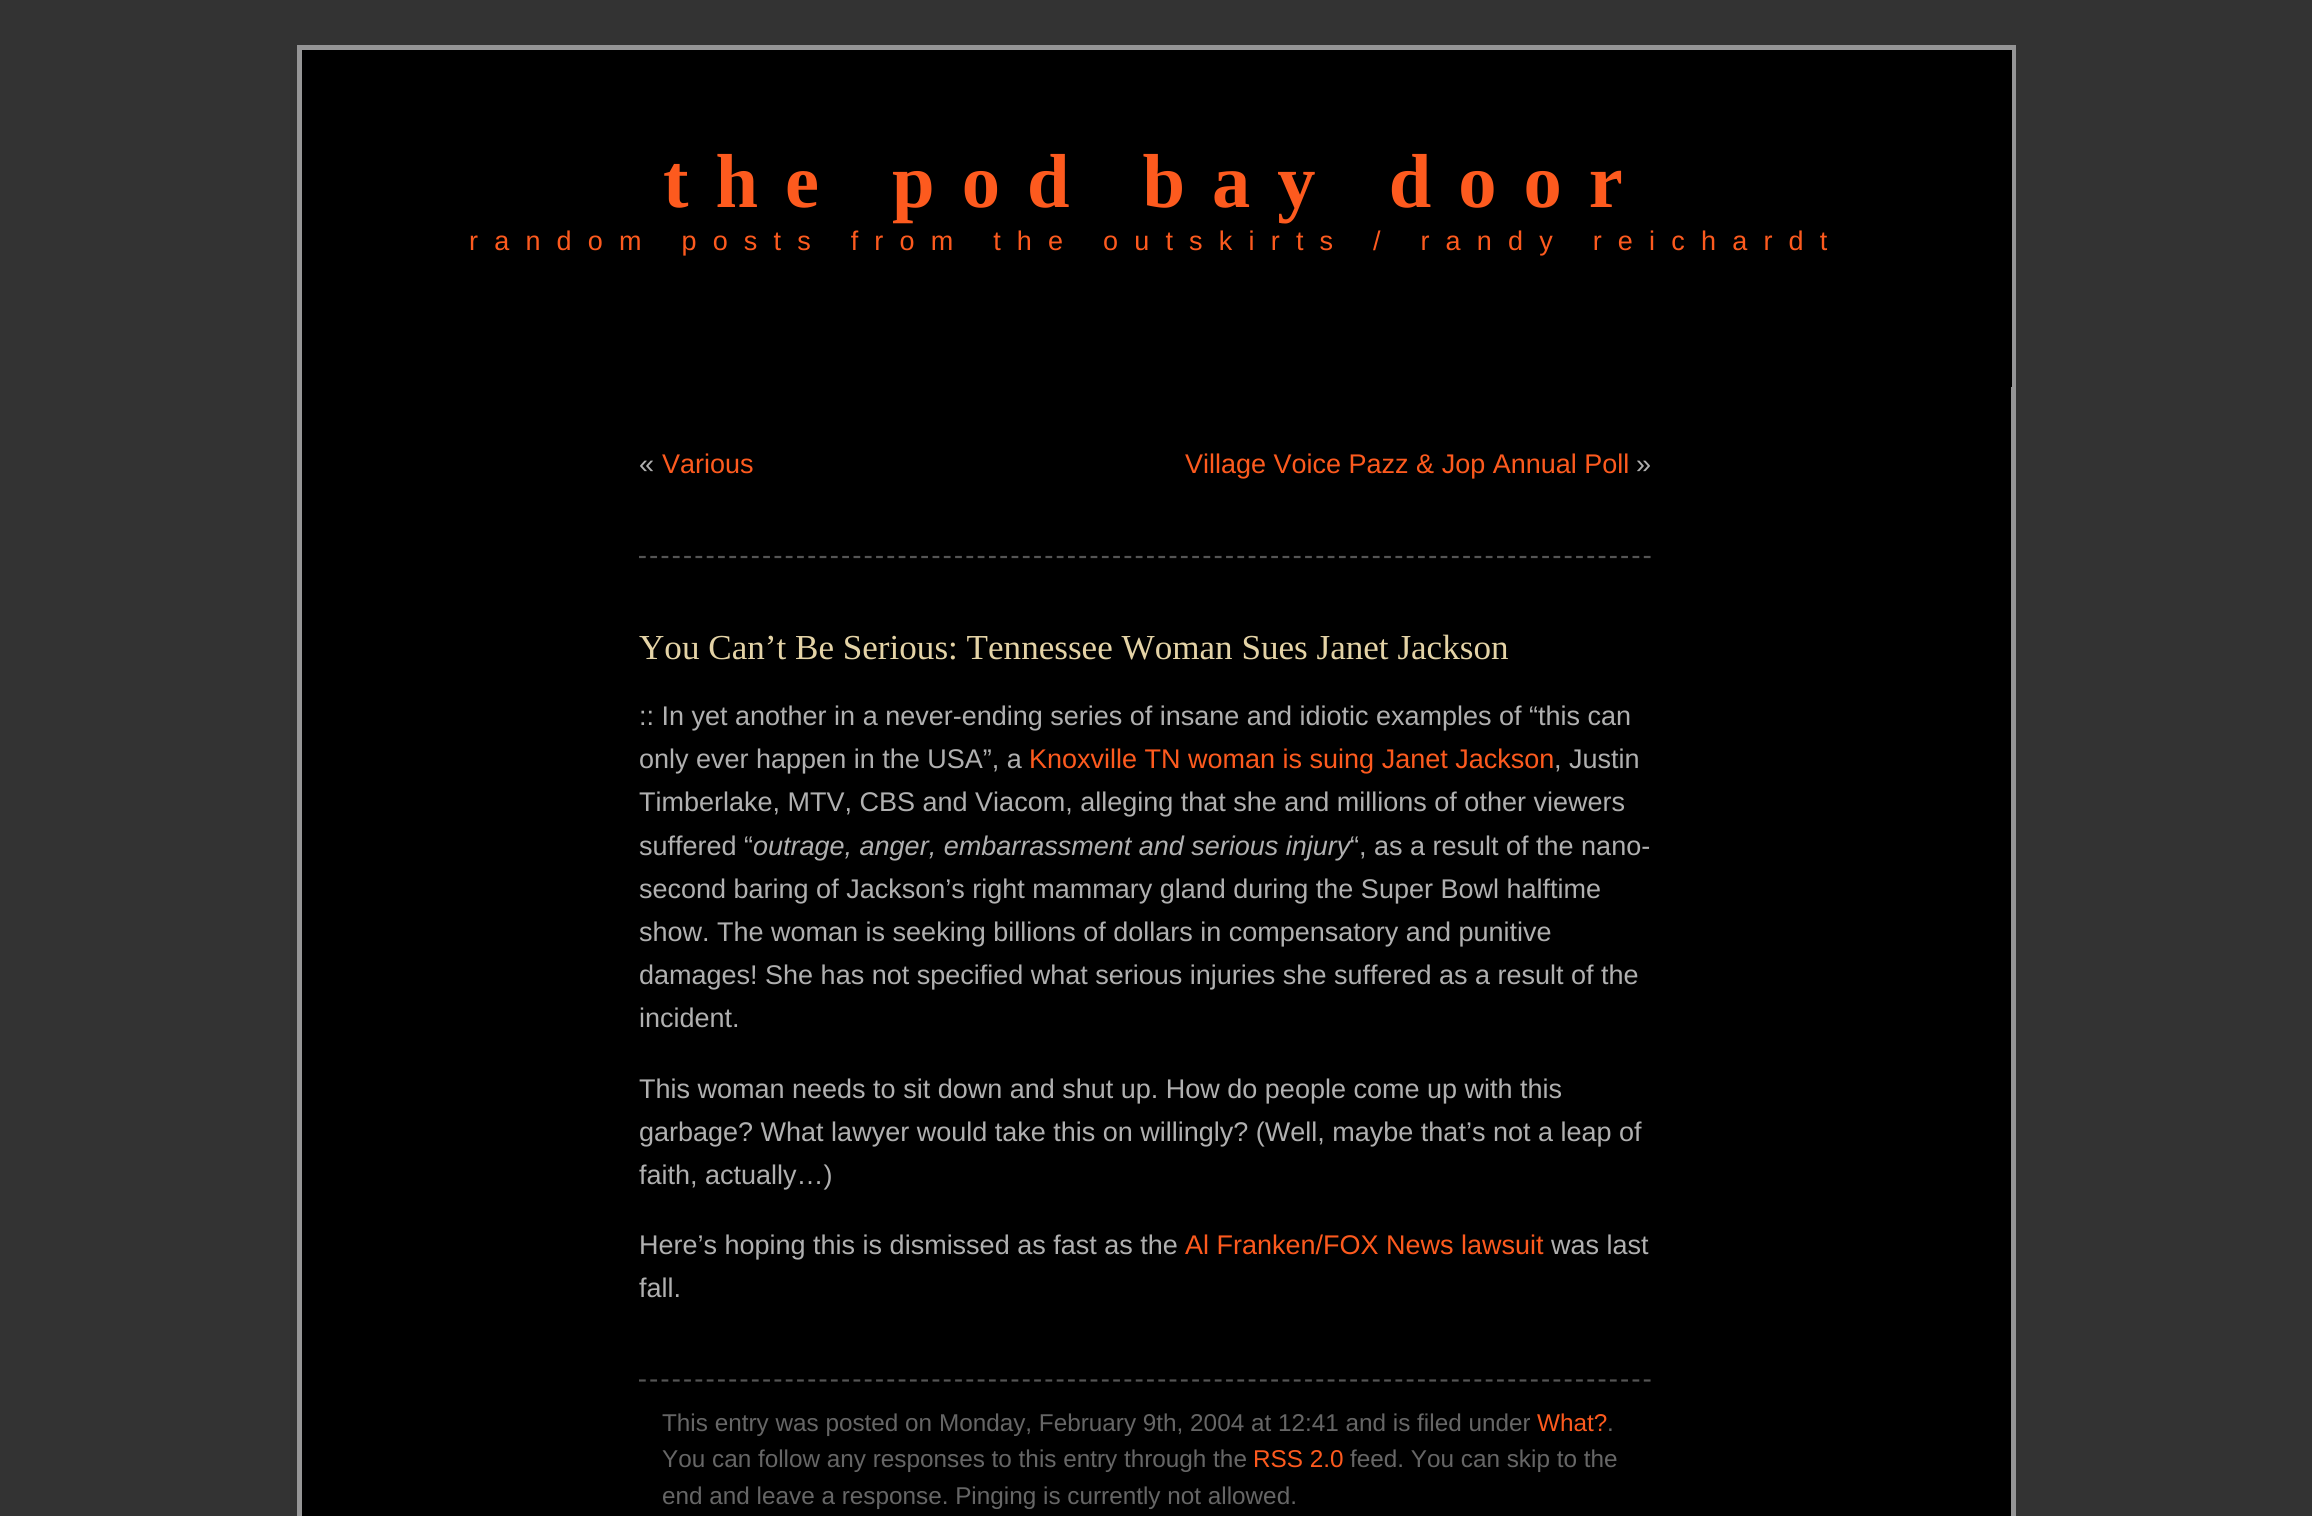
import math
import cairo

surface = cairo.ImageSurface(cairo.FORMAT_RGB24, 2312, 1516)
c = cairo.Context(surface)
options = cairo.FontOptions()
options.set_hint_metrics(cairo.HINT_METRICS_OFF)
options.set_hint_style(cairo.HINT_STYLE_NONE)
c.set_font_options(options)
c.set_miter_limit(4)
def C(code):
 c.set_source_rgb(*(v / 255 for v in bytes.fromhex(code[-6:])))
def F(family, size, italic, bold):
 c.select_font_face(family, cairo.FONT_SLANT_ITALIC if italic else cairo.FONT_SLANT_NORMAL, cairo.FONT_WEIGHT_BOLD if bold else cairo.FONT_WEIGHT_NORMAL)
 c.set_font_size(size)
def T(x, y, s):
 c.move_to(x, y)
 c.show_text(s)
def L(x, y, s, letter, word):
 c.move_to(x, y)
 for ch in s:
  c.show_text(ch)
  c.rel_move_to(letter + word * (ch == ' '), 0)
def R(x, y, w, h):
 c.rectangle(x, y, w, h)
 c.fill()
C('333333')
c.paint()
C('000000')
R(302,387,1709,1129)
c.rectangle(299.5,47.5,1714,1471)
C('959596')
c.set_line_width(5)
c.stroke()
C('000000')
R(302,50,1710,337)
F('Liberation Serif',76.5,0,1)
C('fd5a1e')
L(663,207,'the pod bay door',27,0)
F('Liberation Sans',27,0,0)
L(469,250,'random posts from the outskirts / randy reichardt',16.2,0)
C('b0b0b0')
T(639,473,'«')
C('fd5a1e')
T(662,473,'Various')
T(1185,473,'Village Voice Pazz & Jop Annual Poll')
C('b0b0b0')
T(1636,473,'»')
c.new_path()
c.move_to(639,557)
c.line_to(1651.5,557)
C('555555')
c.set_line_width(2.2)
c.set_dash([6.75,4.54])
c.stroke()
F('Liberation Serif',35.1,0,0)
C('e4d3a6')
T(639,659,'You Can’t Be Serious: Tennessee Woman Sues Janet Jackson')
F('Liberation Sans',27,0,0)
C('b0b0b0')
T(639,725,':: In yet another in a never-ending series of insane and idiotic examples of “this can')
T(639,768,'only ever happen in the USA”, a')
C('fd5a1e')
T(1029,768,'Knoxville TN woman is suing Janet Jackson')
C('b0b0b0')
T(1554,768,', Justin')
T(639,811,'Timberlake, MTV, CBS and Viacom, alleging that she and millions of other viewers')
T(639,855,'suffered “')
F('Liberation Sans',27,1,0)
T(753,855,'outrage, anger, embarrassment and serious injury')
F('Liberation Sans',27,0,0)
T(1350,855,'“, as a result of the nano-')
T(639,898,'second baring of Jackson’s right mammary gland during the Super Bowl halftime')
T(639,941,'show. The woman is seeking billions of dollars in compensatory and punitive')
T(639,984,'damages! She has not specified what serious injuries she suffered as a result of the')
T(639,1027,'incident.')
T(639,1098,'This woman needs to sit down and shut up. How do people come up with this')
T(639,1141,'garbage? What lawyer would take this on willingly? (Well, maybe that’s not a leap of')
T(639,1184,'faith, actually…)')
T(639,1254,'Here’s hoping this is dismissed as fast as the')
C('fd5a1e')
T(1185,1254,'Al Franken/FOX News lawsuit')
C('b0b0b0')
T(1551,1254,'was last')
T(639,1297,'fall.')
c.new_path()
c.move_to(639,1380.5)
c.line_to(1651.5,1380.5)
C('555555')
c.stroke()
F('Liberation Sans',24.3,0,0)
C('666666')
T(662,1431,'This entry was posted on Monday, February 9th, 2004 at 12:41 and is filed under')
C('fd5a1e')
T(1537,1431,'What?')
C('666666')
T(1607,1431,'.')
T(662,1467,'You can follow any responses to this entry through the')
C('fd5a1e')
T(1253,1467,'RSS 2.0')
C('666666')
T(1350,1467,'feed. You can skip to the')
T(662,1504,'end and leave a response. Pinging is currently not allowed.')
surface.write_to_png('o.png')
